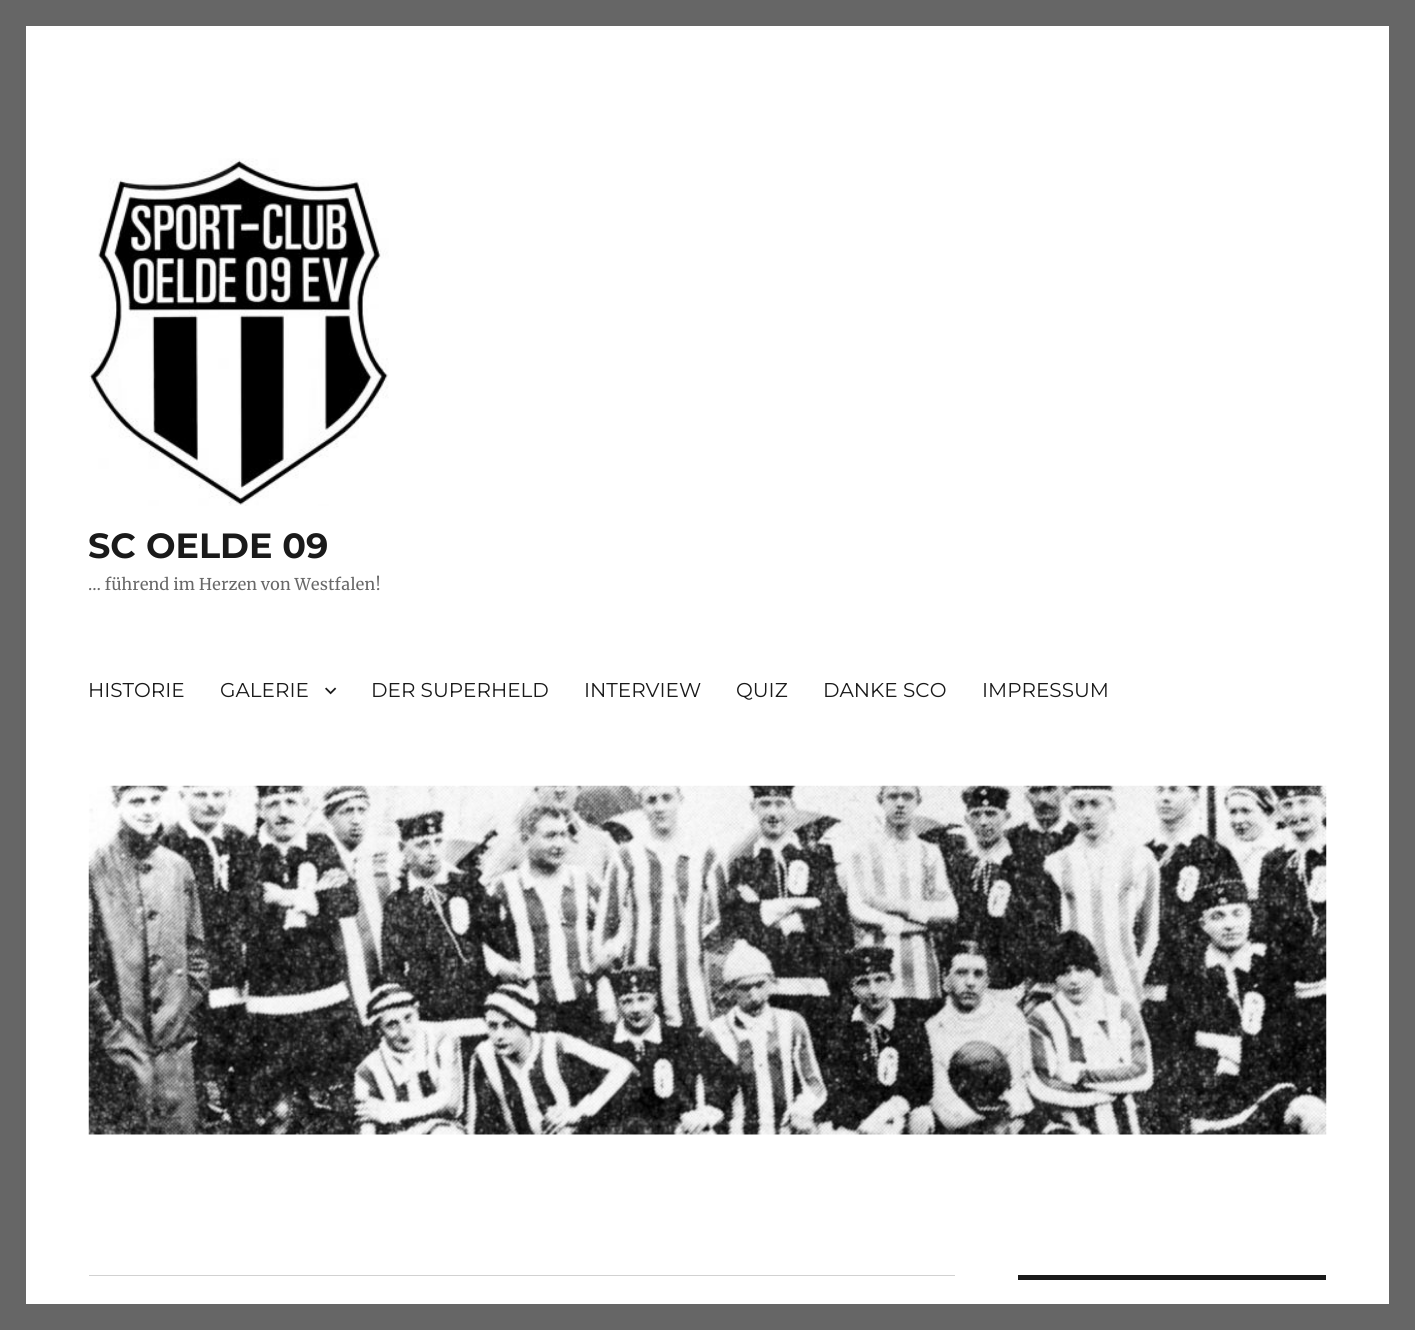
import math
import cairo

surface = cairo.ImageSurface(cairo.FORMAT_RGB24, 1415, 1330)
c = cairo.Context(surface)
options = cairo.FontOptions()
options.set_hint_metrics(cairo.HINT_METRICS_OFF)
options.set_hint_style(cairo.HINT_STYLE_NONE)
c.set_font_options(options)
c.set_miter_limit(4)
def C(code):
 c.set_source_rgb(*(v / 255 for v in bytes.fromhex(code[-6:])))
def F(family, size, italic, bold):
 c.select_font_face(family, cairo.FONT_SLANT_ITALIC if italic else cairo.FONT_SLANT_NORMAL, cairo.FONT_WEIGHT_BOLD if bold else cairo.FONT_WEIGHT_NORMAL)
 c.set_font_size(size)
def T(x, y, s):
 c.move_to(x, y)
 c.show_text(s)
def R(x, y, w, h):
 c.rectangle(x, y, w, h)
 c.fill()
def I(path, x, y, w, h):
 c.save()
 c.set_source_surface(cairo.ImageSurface.create_from_png(path), x, y)
 c.rectangle(x, y, w, h)
 c.fill()
 c.restore()
C('666666')
c.paint()
C('ffffff')
R(26,26,1363,1278)
I('1.png',89,158,300,348)
F('Montserrat Thin',35,0,0)
C('1a1a1a')
T(88,558,'SC OELDE 09')
F('Merriweather',16.25,0,0)
C('686868')
T(88,590,'… führend im Herzen von Westfalen!')
F('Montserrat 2 Thin',20,0,0)
C('1a1a1a')
T(88,697,'HISTORIE')
T(220,697,'GALERIE')
I('2.png',325,687,12,8)
T(371,697,'DER SUPERHELD')
T(584,697,'INTERVIEW')
T(736,697,'QUIZ')
T(823,697,'DANKE SCO')
T(982,697,'IMPRESSUM')
I('3.png',88,785,1239,350)
C('d1d1d1')
R(89,1275,866,1)
C('1a1a1a')
R(1018,1275,308,5)
surface.write_to_png('o.png')
